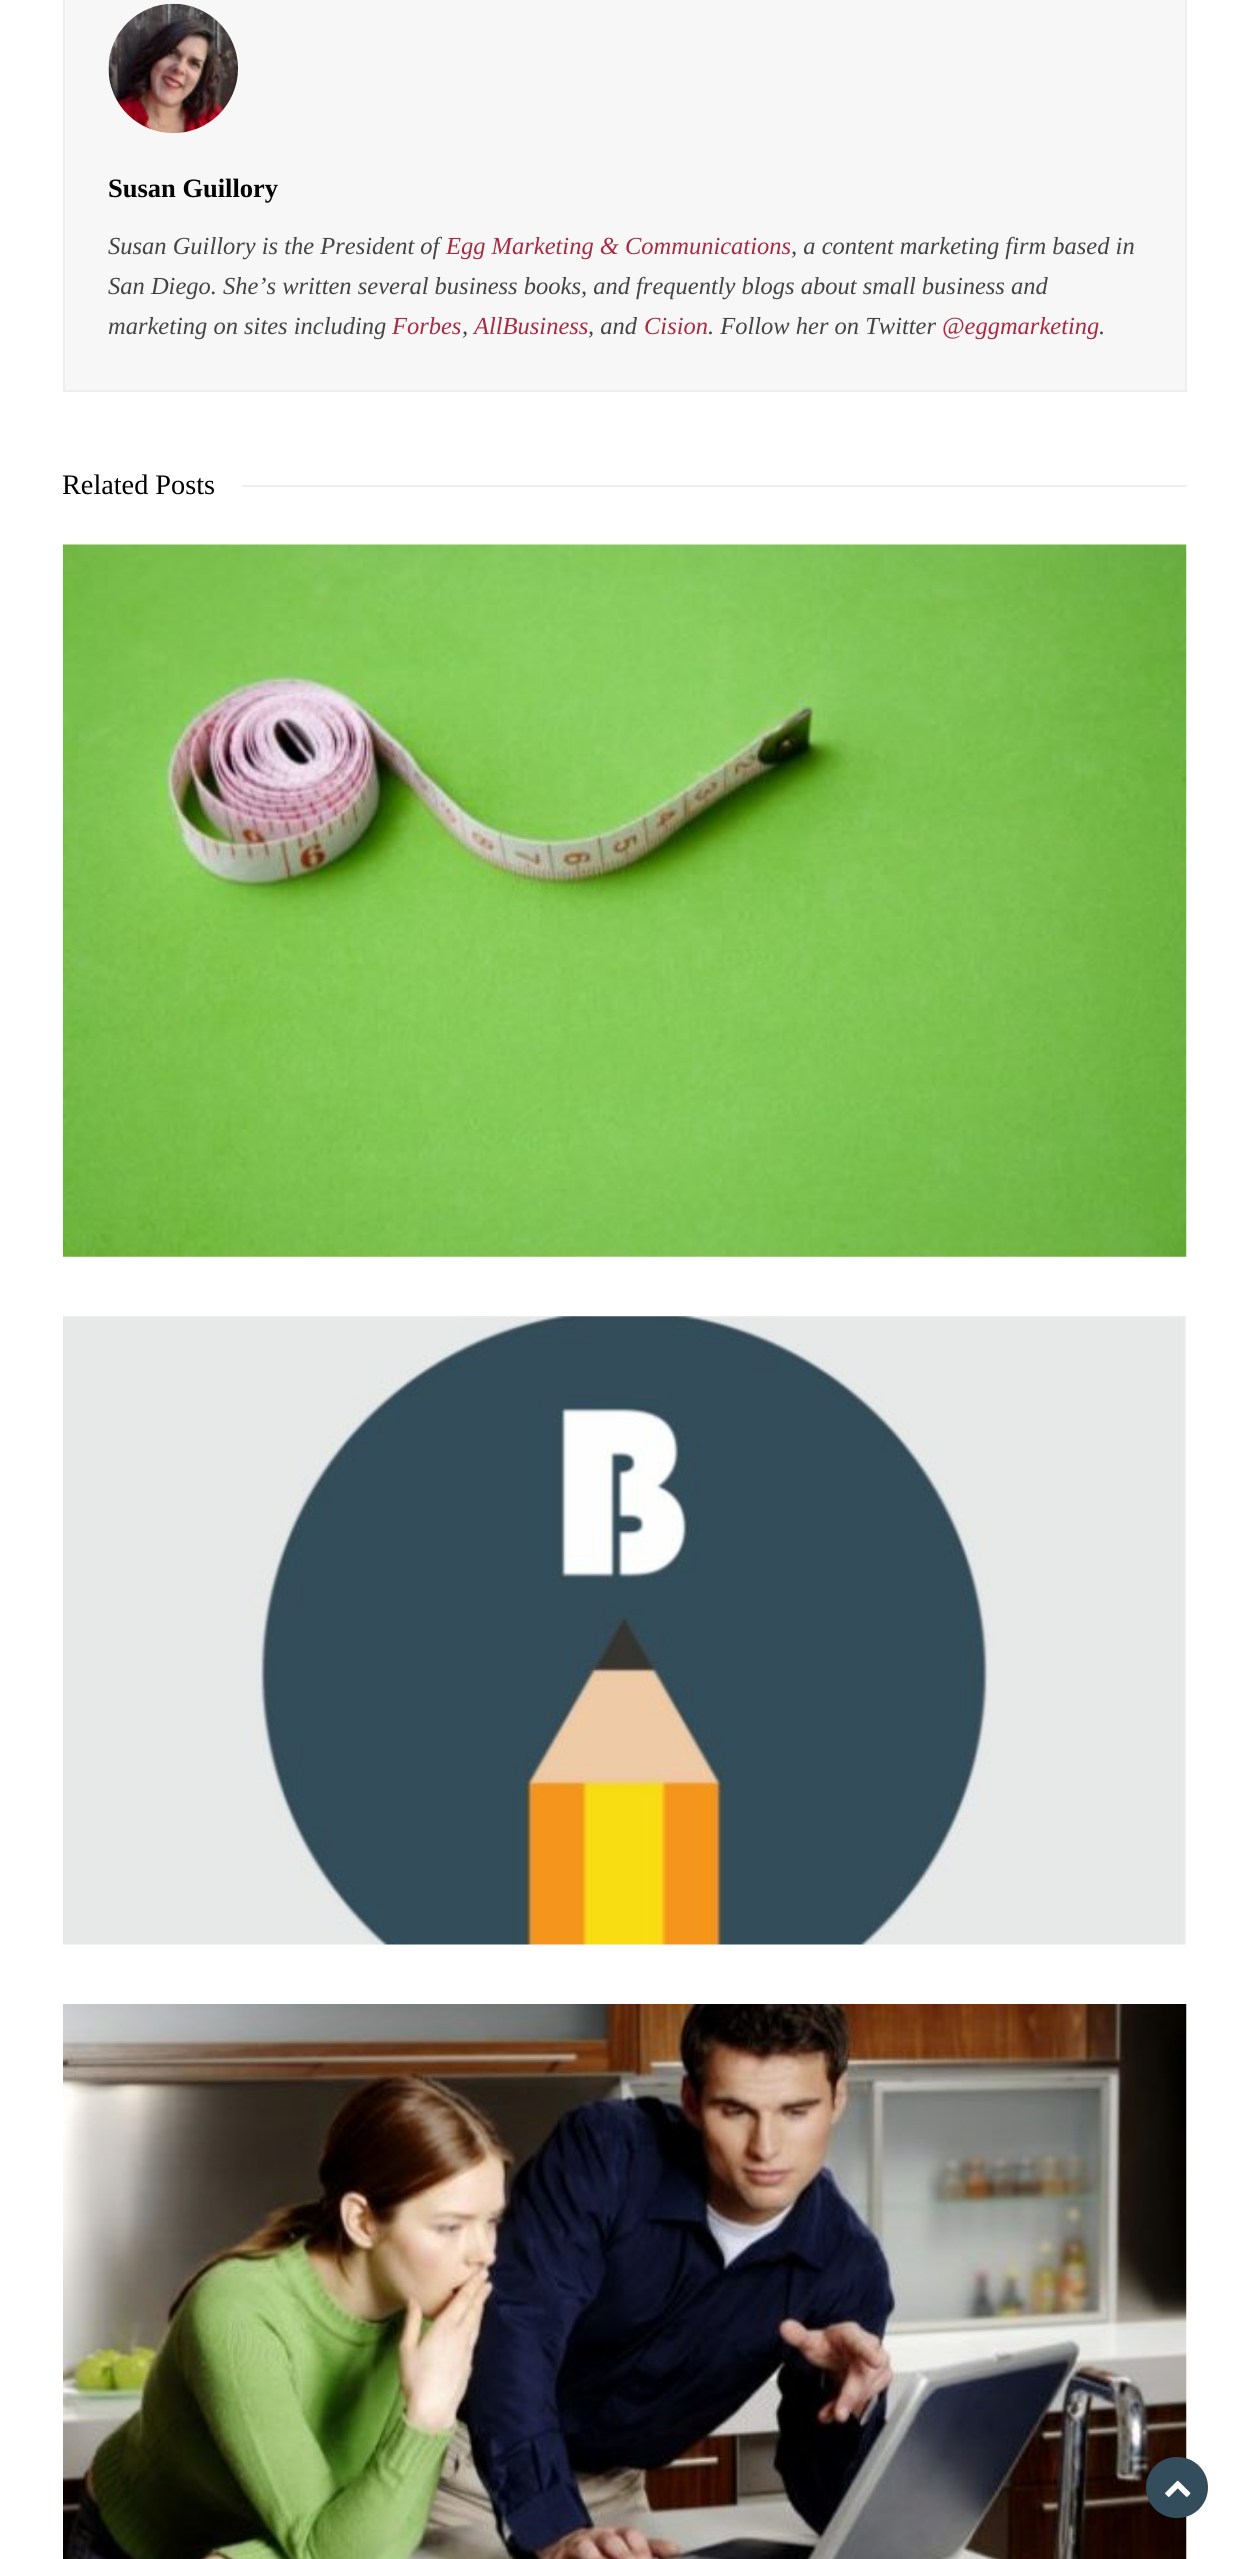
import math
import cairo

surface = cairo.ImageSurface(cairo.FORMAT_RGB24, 1248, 2559)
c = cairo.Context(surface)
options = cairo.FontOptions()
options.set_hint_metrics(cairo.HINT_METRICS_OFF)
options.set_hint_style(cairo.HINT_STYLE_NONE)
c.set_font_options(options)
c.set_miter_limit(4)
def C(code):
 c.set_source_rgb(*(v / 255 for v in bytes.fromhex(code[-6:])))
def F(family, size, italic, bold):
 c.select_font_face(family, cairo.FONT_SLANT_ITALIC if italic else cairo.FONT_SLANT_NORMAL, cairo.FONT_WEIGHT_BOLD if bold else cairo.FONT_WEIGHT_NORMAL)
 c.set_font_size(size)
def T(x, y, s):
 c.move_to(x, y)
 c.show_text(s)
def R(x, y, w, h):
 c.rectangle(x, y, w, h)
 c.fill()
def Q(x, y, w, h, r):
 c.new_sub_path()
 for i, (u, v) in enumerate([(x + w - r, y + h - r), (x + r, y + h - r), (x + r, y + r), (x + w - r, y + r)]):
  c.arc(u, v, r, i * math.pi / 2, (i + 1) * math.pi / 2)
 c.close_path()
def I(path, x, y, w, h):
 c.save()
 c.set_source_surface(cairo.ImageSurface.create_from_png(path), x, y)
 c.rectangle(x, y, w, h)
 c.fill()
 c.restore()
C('ffffff')
c.paint()
C('f7f7f7')
c.rectangle(64,-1,1122,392)
c.fill_preserve()
C('eeeeee')
c.stroke()
I('1.png',108,3,130,131)
F('Liberation Serif',26.5,0,1)
C('000000')
T(108,197,'Susan Guillory')
F('Liberation Serif',24.5,1,0)
C('444444')
T(108,254,'Susan Guillory is the President of')
C('a62b43')
T(446,254,'Egg Marketing & Communications')
C('444444')
T(791,254,', a content marketing firm based in')
T(108,294,'San Diego. She’s written several business books, and frequently blogs about small business and')
T(108,334,'marketing on sites including')
C('a62b43')
T(392,334,'Forbes')
C('444444')
T(462,334,',')
C('a62b43')
T(474,334,'AllBusiness')
C('444444')
T(588,334,', and')
C('a62b43')
T(644,334,'Cision')
C('444444')
T(708,334,'. Follow her on Twitter')
C('a62b43')
T(942,334,'@eggmarketing')
C('444444')
T(1099,334,'.')
F('Liberation Serif',28.25,0,0)
C('000000')
T(62,494,'Related Posts')
C('eeeeee')
R(242,485,945,2)
I('2.png',63,544,1124,713)
I('3.png',63,1316,1123,629)
I('4.png',63,2004,1124,555)
C('334d5c')
Q(1146,2457,62,61,30.5)
c.fill()
I('5.png',1165,2480,26,17)
surface.write_to_png('o.png')
